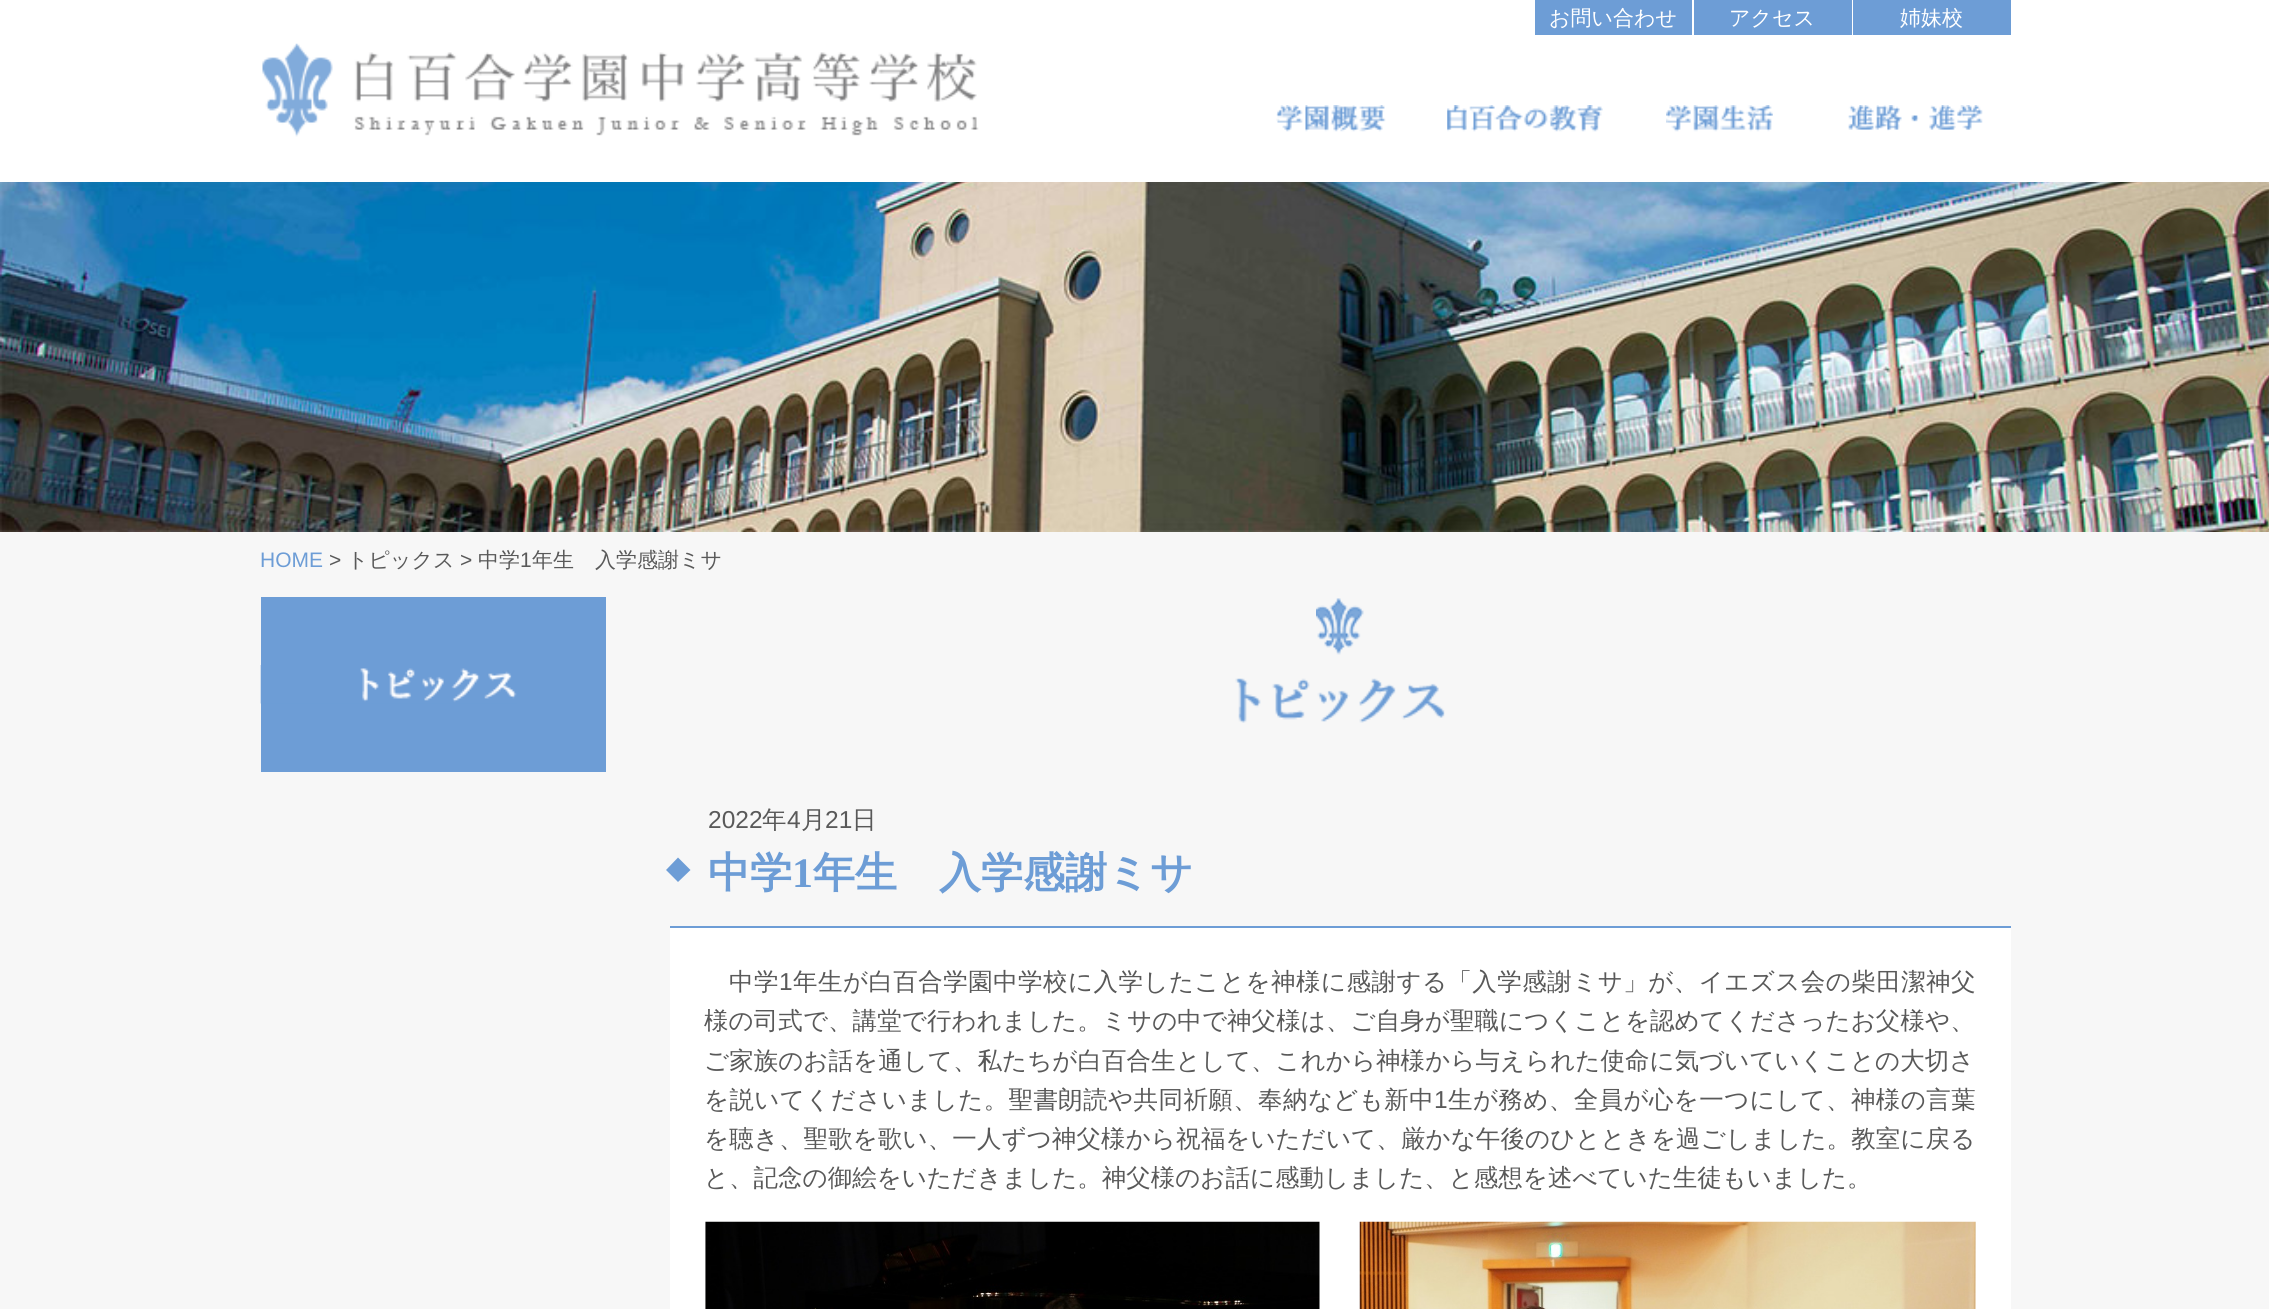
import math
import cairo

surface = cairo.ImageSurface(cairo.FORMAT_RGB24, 2269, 1309)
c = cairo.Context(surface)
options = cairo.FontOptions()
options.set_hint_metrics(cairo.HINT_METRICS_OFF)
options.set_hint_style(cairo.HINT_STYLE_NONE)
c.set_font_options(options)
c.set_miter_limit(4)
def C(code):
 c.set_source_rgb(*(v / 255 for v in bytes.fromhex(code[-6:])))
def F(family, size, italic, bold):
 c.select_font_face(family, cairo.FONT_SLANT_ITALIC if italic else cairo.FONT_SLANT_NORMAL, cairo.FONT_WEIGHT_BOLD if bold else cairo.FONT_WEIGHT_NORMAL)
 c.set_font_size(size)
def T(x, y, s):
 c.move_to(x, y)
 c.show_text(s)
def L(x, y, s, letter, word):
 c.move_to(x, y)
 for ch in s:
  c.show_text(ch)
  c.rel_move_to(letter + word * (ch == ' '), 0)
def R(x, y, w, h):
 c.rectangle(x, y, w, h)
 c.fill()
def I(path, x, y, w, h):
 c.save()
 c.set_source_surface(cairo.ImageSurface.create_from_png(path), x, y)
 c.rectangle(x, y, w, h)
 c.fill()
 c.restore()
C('f7f7f7')
c.paint()
C('ffffff')
R(0,0,2269,182)
C('6d9dd6')
R(1535,0,157,35)
F('WenQuanYi Zen Hei Medium',21,0,0)
C('ffffff')
T(1549,25,'お問い合わせ')
C('6d9dd6')
R(1694,0,158,35)
C('ffffff')
T(1729,25,'アクセス')
C('6d9dd6')
R(1853,0,158,35)
C('ffffff')
T(1900,25,'姉妹校')
I('1.png',262,43,717,94)
I('2.png',1276,105,110,27)
I('3.png',1447,105,156,27)
I('4.png',1666,105,107,27)
I('5.png',1848,105,135,26)
I('6.png',0,182,2269,350)
F('Liberation Sans',21,0,0)
C('6d9dd6')
T(260,567,'HOME')
C('595959')
T(329,567,'>')
F('WenQuanYi Zen Hei Medium',21,0,0)
T(347,567,'トピックス')
F('Liberation Sans',21,0,0)
T(460,567,'>')
F('WenQuanYi Zen Hei Medium',21,0,0)
T(478,567,'中学')
F('Liberation Sans',21,0,0)
T(520,567,'1')
F('WenQuanYi Zen Hei Medium',21,0,0)
T(532,567,'年生　入学感謝ミサ')
C('6d9dd6')
R(261,597,345,175)
I('7.png',260,665,257,39)
I('8.png',1235,678,210,45)
I('9.png',1316,598,48,57)
F('Liberation Sans',24.5,0,0)
C('595959')
T(708,828,'2022')
F('WenQuanYi Zen Hei Medium',24.5,0,0)
T(762,828,'年')
F('Liberation Sans',24.5,0,0)
T(787,828,'4')
F('WenQuanYi Zen Hei Medium',24.5,0,0)
T(801,828,'月')
F('Liberation Sans',24.5,0,0)
T(825,828,'21')
F('WenQuanYi Zen Hei Medium',24.5,0,0)
T(852,828,'日')
C('6d9dd6')
R(670,926,1341,2)
c.new_path()
c.move_to(678,857.5)
c.line_to(690.5,870)
c.line_to(678,882)
c.line_to(666,870)
c.close_path()
c.fill()
F('WenQuanYi Zen Hei',42,0,1)
T(708,887,'中学')
F('Liberation Serif',42,0,1)
T(792,887,'1')
F('WenQuanYi Zen Hei',42,0,1)
T(813,887,'年生　入学感謝ミサ')
C('ffffff')
R(670,928,1341,381)
F('WenQuanYi Zen Hei Medium',24.5,0,0)
C('595959')
L(729,990,'中学',.45,0)
F('Liberation Sans',24.5,0,0)
L(779,990,'1',.45,0)
F('WenQuanYi Zen Hei Medium',24.5,0,0)
L(793,990,'年生が白百合学園中学校に入学したことを神様に感謝する「入学感謝ミサ」が、イエズス会の柴田潔神父',.45,0)
L(704,1029,'様の司式で、講堂で行われました。ミサの中で神父様は、ご自身が聖職につくことを認めてくださったお父様や、',.08,0)
L(704,1069,'ご家族のお話を通して、私たちが白百合生として、これから神様から与えられた使命に気づいていくことの大切さ',.05,0)
L(704,1108,'を説いてくださいました。聖書朗読や共同祈願、奉納なども新中',.4,0)
F('Liberation Sans',24.5,0,0)
L(1434,1108,'1',.4,0)
F('WenQuanYi Zen Hei Medium',24.5,0,0)
L(1448,1108,'生が務め、全員が心を一つにして、神様の言葉',.4,0)
L(704,1147,'を聴き、聖歌を歌い、一人ずつ神父様から祝福をいただいて、厳かな午後のひとときを過ごしました。教室に戻る',.1,0)
T(704,1186,'と、記念の御絵をいただきました。神父様のお話に感動しました、と感想を述べていた生徒もいました。')
I('10.png',705,1221,615,88)
I('11.png',1359,1221,617,88)
surface.write_to_png('o.png')
